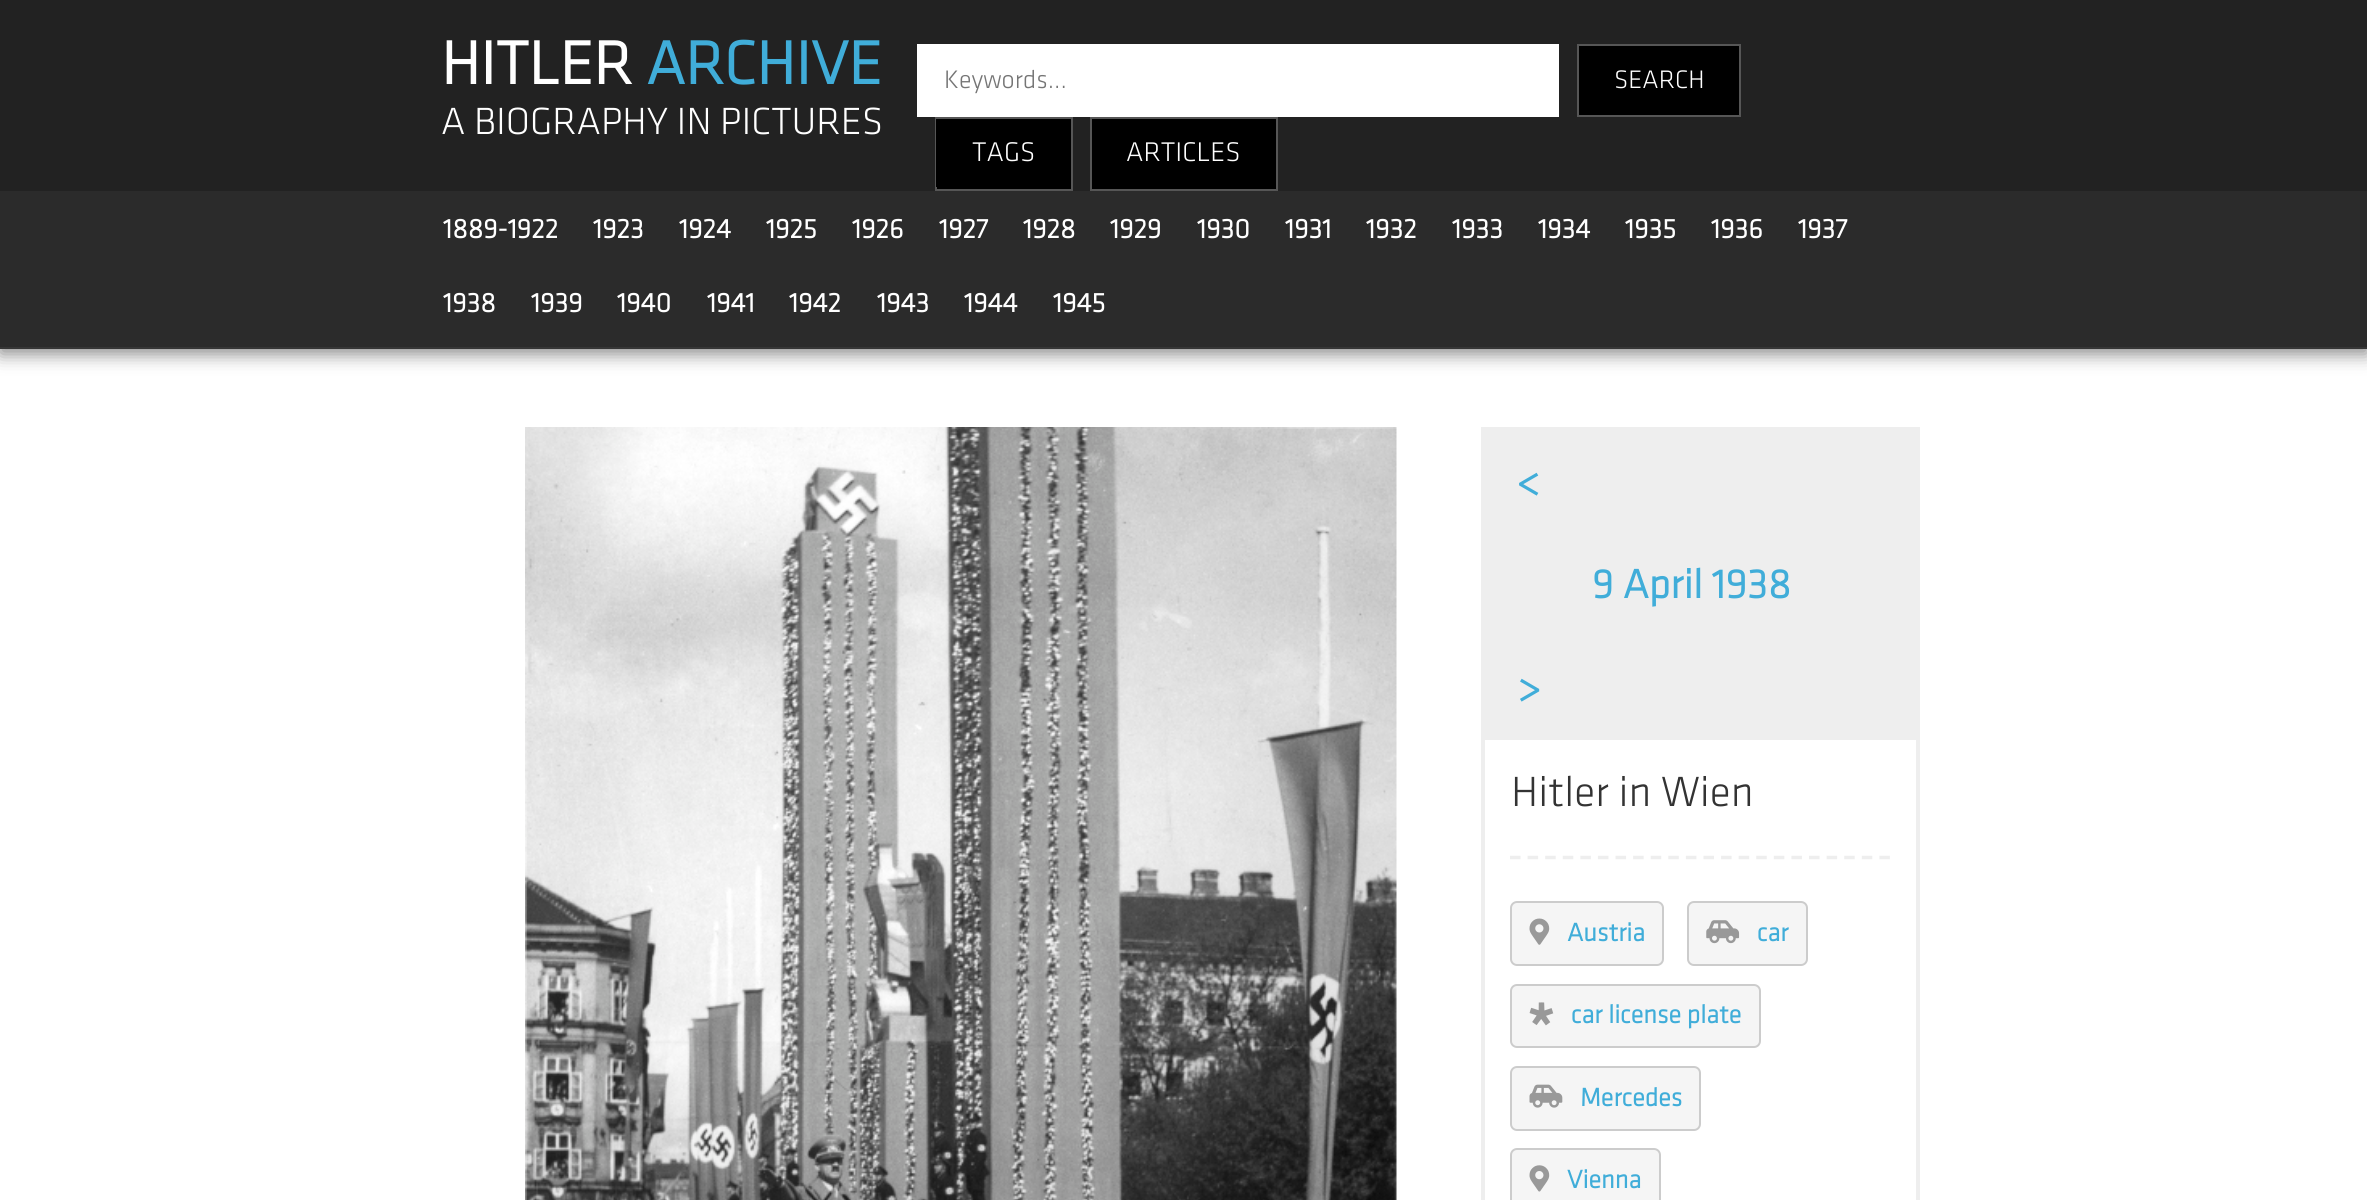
import math
import cairo

surface = cairo.ImageSurface(cairo.FORMAT_RGB24, 2367, 1200)
c = cairo.Context(surface)
options = cairo.FontOptions()
options.set_hint_metrics(cairo.HINT_METRICS_OFF)
options.set_hint_style(cairo.HINT_STYLE_NONE)
c.set_font_options(options)
c.set_miter_limit(4)
def C(code):
 c.set_source_rgb(*(v / 255 for v in bytes.fromhex(code[-6:])))
def F(family, size, italic, bold):
 c.select_font_face(family, cairo.FONT_SLANT_ITALIC if italic else cairo.FONT_SLANT_NORMAL, cairo.FONT_WEIGHT_BOLD if bold else cairo.FONT_WEIGHT_NORMAL)
 c.set_font_size(size)
def T(x, y, s):
 c.move_to(x, y)
 c.show_text(s)
def R(x, y, w, h):
 c.rectangle(x, y, w, h)
 c.fill()
def Q(x, y, w, h, r):
 c.new_sub_path()
 for i, (u, v) in enumerate([(x + w - r, y + h - r), (x + r, y + h - r), (x + r, y + r), (x + w - r, y + r)]):
  c.arc(u, v, r, i * math.pi / 2, (i + 1) * math.pi / 2)
 c.close_path()
def S(x, y, w, h, r, blur, alpha):
 c.push_group_with_content(cairo.CONTENT_ALPHA)
 c.set_operator(cairo.OPERATOR_SOURCE)
 for i in range(15, -16, -2):
  e = blur * i / 6
  if min(w, h) + 2 * e > 0:
   c.set_source_rgba(0, 0, 0, alpha * math.erfc((i - 1) / 8.5) / 2)
   Q(x - e, y - e, w + 2 * e, h + 2 * e, max(0, min(r + e + blur * .6, min(w, h) / 2 + e)))
   c.fill()
 c.mask(c.pop_group())
def I(path, x, y, w, h):
 c.save()
 c.set_source_surface(cairo.ImageSurface.create_from_png(path), x, y)
 c.rectangle(x, y, w, h)
 c.fill()
 c.restore()
C('ffffff')
c.paint()
C('888888')
S(0,5,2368,349,0,9,1)
C('222222')
R(0,0,2367,191)
F('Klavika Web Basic',63,0,1)
C('ffffff')
T(441,84,'HITLER')
C('40add9')
T(646,84,'ARCHIVE')
F('Klavika Web Basic Light',39.25,0,0)
C('ffffff')
T(441,134,'A BIOGRAPHY IN PICTURES')
R(917,44,642,73)
F('Klavika Web Basic Light',26.25,0,0)
C('757575')
T(944,88,'Keywords...')
C('000000')
c.rectangle(1578,45,162,71)
c.fill_preserve()
C('565656')
c.stroke()
C('ffffff')
T(1614,88,'SEARCH')
C('000000')
R(937,187,134,2)
c.rectangle(936,118,136,72)
C('565656')
c.stroke()
C('000000')
R(936,119,135,68)
F('Klavika Web Basic Light',28,0,0)
C('ffffff')
T(972,161,'TAGS')
C('000000')
c.rectangle(1091,118,186,72)
c.fill_preserve()
C('565656')
c.stroke()
C('ffffff')
T(1126,161,'ARTICLES')
C('2b2b2b')
R(0,191,2367,156)
C('363636')
R(0,347,2367,2)
F('Klavika Web Basic',28,0,1)
C('ffffff')
T(443,238,'1889-1922')
T(593,238,'1923')
T(679,238,'1924')
T(766,238,'1925')
T(852,238,'1926')
T(939,238,'1927')
T(1023,238,'1928')
T(1110,238,'1929')
T(1197,238,'1930')
T(1285,238,'1931')
T(1366,238,'1932')
T(1452,238,'1933')
T(1538,238,'1934')
T(1625,238,'1935')
T(1711,238,'1936')
T(1798,238,'1937')
T(443,312,'1938')
T(531,312,'1939')
T(617,312,'1940')
T(707,312,'1941')
T(789,312,'1942')
T(877,312,'1943')
T(964,312,'1944')
T(1053,312,'1945')
I('1.png',525,427,872,773)
c.rectangle(1483,429,435,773)
C('eeeeee')
c.set_line_width(4)
c.stroke()
R(1485,431,431,309)
F('Klavika Web Basic',42,0,1)
C('40add9')
T(1517,495,'<')
T(1592,598,'9 April 1938')
T(1517,701,'>')
F('Klavika Web Basic Light',43.75,0,0)
C('333333')
T(1511,806,'Hitler in Wien')
c.new_path()
c.move_to(1510,857.5)
c.line_to(1890,857.5)
C('eeeeee')
c.set_line_width(3.5)
c.set_dash([10.5,7.09])
c.stroke()
C('f5f5f5')
Q(1511,902,152,63,6)
c.fill_preserve()
C('cccccc')
c.set_line_width(2)
c.set_dash([])
c.stroke()
I('2.png',1529,918,21,27)
F('Klavika Web Basic',26.25,0,1)
C('40add9')
T(1567,941,'Austria')
C('f5f5f5')
Q(1688,902,119,63,6)
c.fill_preserve()
C('cccccc')
c.stroke()
I('3.png',1706,920,34,24)
C('40add9')
T(1757,941,'car')
C('f5f5f5')
Q(1511,985,249,62,6)
c.fill_preserve()
C('cccccc')
c.stroke()
I('4.png',1529,1002,25,24)
C('40add9')
T(1571,1023,'car license plate')
C('f5f5f5')
Q(1511,1067,189,63,6)
c.fill_preserve()
C('cccccc')
c.stroke()
I('5.png',1529,1084,34,24)
C('40add9')
T(1580,1106,'Mercedes')
C('f5f5f5')
Q(1511,1149,149,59,6)
c.fill_preserve()
C('cccccc')
c.stroke()
I('6.png',1529,1165,21,27)
C('40add9')
T(1567,1188,'Vienna')
surface.write_to_png('o.png')
